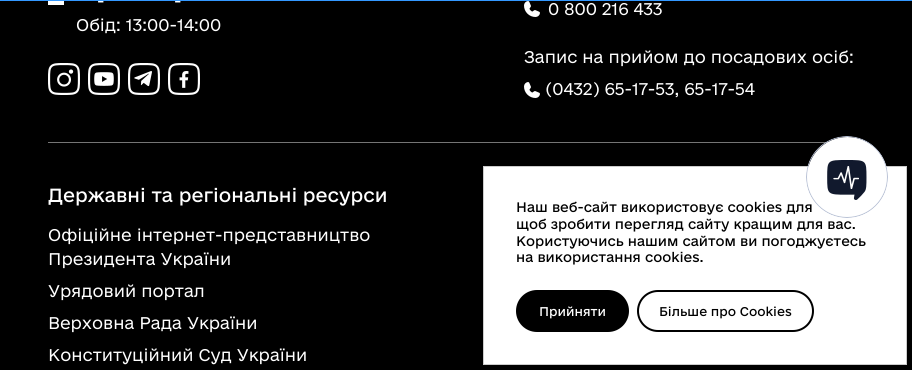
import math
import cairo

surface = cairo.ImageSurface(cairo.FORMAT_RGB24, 912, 370)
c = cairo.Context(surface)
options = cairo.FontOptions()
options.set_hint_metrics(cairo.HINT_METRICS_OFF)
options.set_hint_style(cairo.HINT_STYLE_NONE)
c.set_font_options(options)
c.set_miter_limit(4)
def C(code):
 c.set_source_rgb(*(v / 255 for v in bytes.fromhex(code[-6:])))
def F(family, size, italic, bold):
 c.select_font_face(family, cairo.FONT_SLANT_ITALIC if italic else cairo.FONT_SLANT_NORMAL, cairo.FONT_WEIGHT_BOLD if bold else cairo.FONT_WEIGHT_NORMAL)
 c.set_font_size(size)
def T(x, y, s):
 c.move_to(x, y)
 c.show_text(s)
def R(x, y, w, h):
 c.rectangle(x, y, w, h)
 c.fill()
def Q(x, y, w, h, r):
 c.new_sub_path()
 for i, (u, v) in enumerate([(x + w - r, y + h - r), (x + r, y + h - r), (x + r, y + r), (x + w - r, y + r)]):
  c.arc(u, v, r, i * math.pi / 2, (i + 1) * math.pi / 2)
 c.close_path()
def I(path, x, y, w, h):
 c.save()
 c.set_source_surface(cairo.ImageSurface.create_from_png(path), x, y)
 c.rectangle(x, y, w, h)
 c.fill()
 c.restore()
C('000000')
c.paint()
F('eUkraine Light',16,0,0)
C('ffffff')
T(97,7,'-')
T(174,7,'-')
C('3398ff')
R(0,0,912,1)
C('757575')
R(48,142,780,1)
C('ffffff')
R(48,1,16,4)
T(76,31,'Обід: 13:00-14:00')
I('1.png',48,63,32,32)
I('2.png',88,63,32,32)
I('3.png',128,63,32,32)
I('4.png',168,63,32,32)
I('5.png',524,1,16,16)
T(548,15,'0 800 216 433')
T(524,63,'Запис на прийом до посадових осіб:')
I('5.png',524,82,16,16)
T(545,95,'(0432) 65-17-53, 65-17-54')
F('eUkraine',18,0,0)
T(48,202,'Державні та регіональні ресурси')
F('eUkraine Light',16,0,0)
T(48,241,'Офіційне інтернет-представництво')
T(48,265,'Президента України')
T(48,297,'Урядовий портал')
T(48,329,'Верховна Рада України')
T(48,361,'Конституційний Суд України')
c.rectangle(483.5,166.5,423,198)
c.fill_preserve()
C('cccccc')
c.set_line_width(1)
c.stroke()
F('eUkraine',13,0,0)
C('000000')
T(516,212,'Наш веб-сайт використовує cookies для')
I('6.png',806,136,82,82)
T(516,229,'щоб зробити перегляд сайту кращим для вас.')
T(516,246,'Користуючись нашим сайтом ви погоджуєтесь')
T(516,262,'на використання cookies.')
Q(517.5,291.5,110,39,19.5)
c.fill_preserve()
c.set_line_width(3)
c.stroke()
F('eUkraine',12,0,0)
C('ffffff')
T(539,316,'Прийняти')
Q(638,291,175,40,20)
C('000000')
c.set_line_width(2)
c.stroke()
T(659,316,'Більше про Cookies')
surface.write_to_png('o.png')
